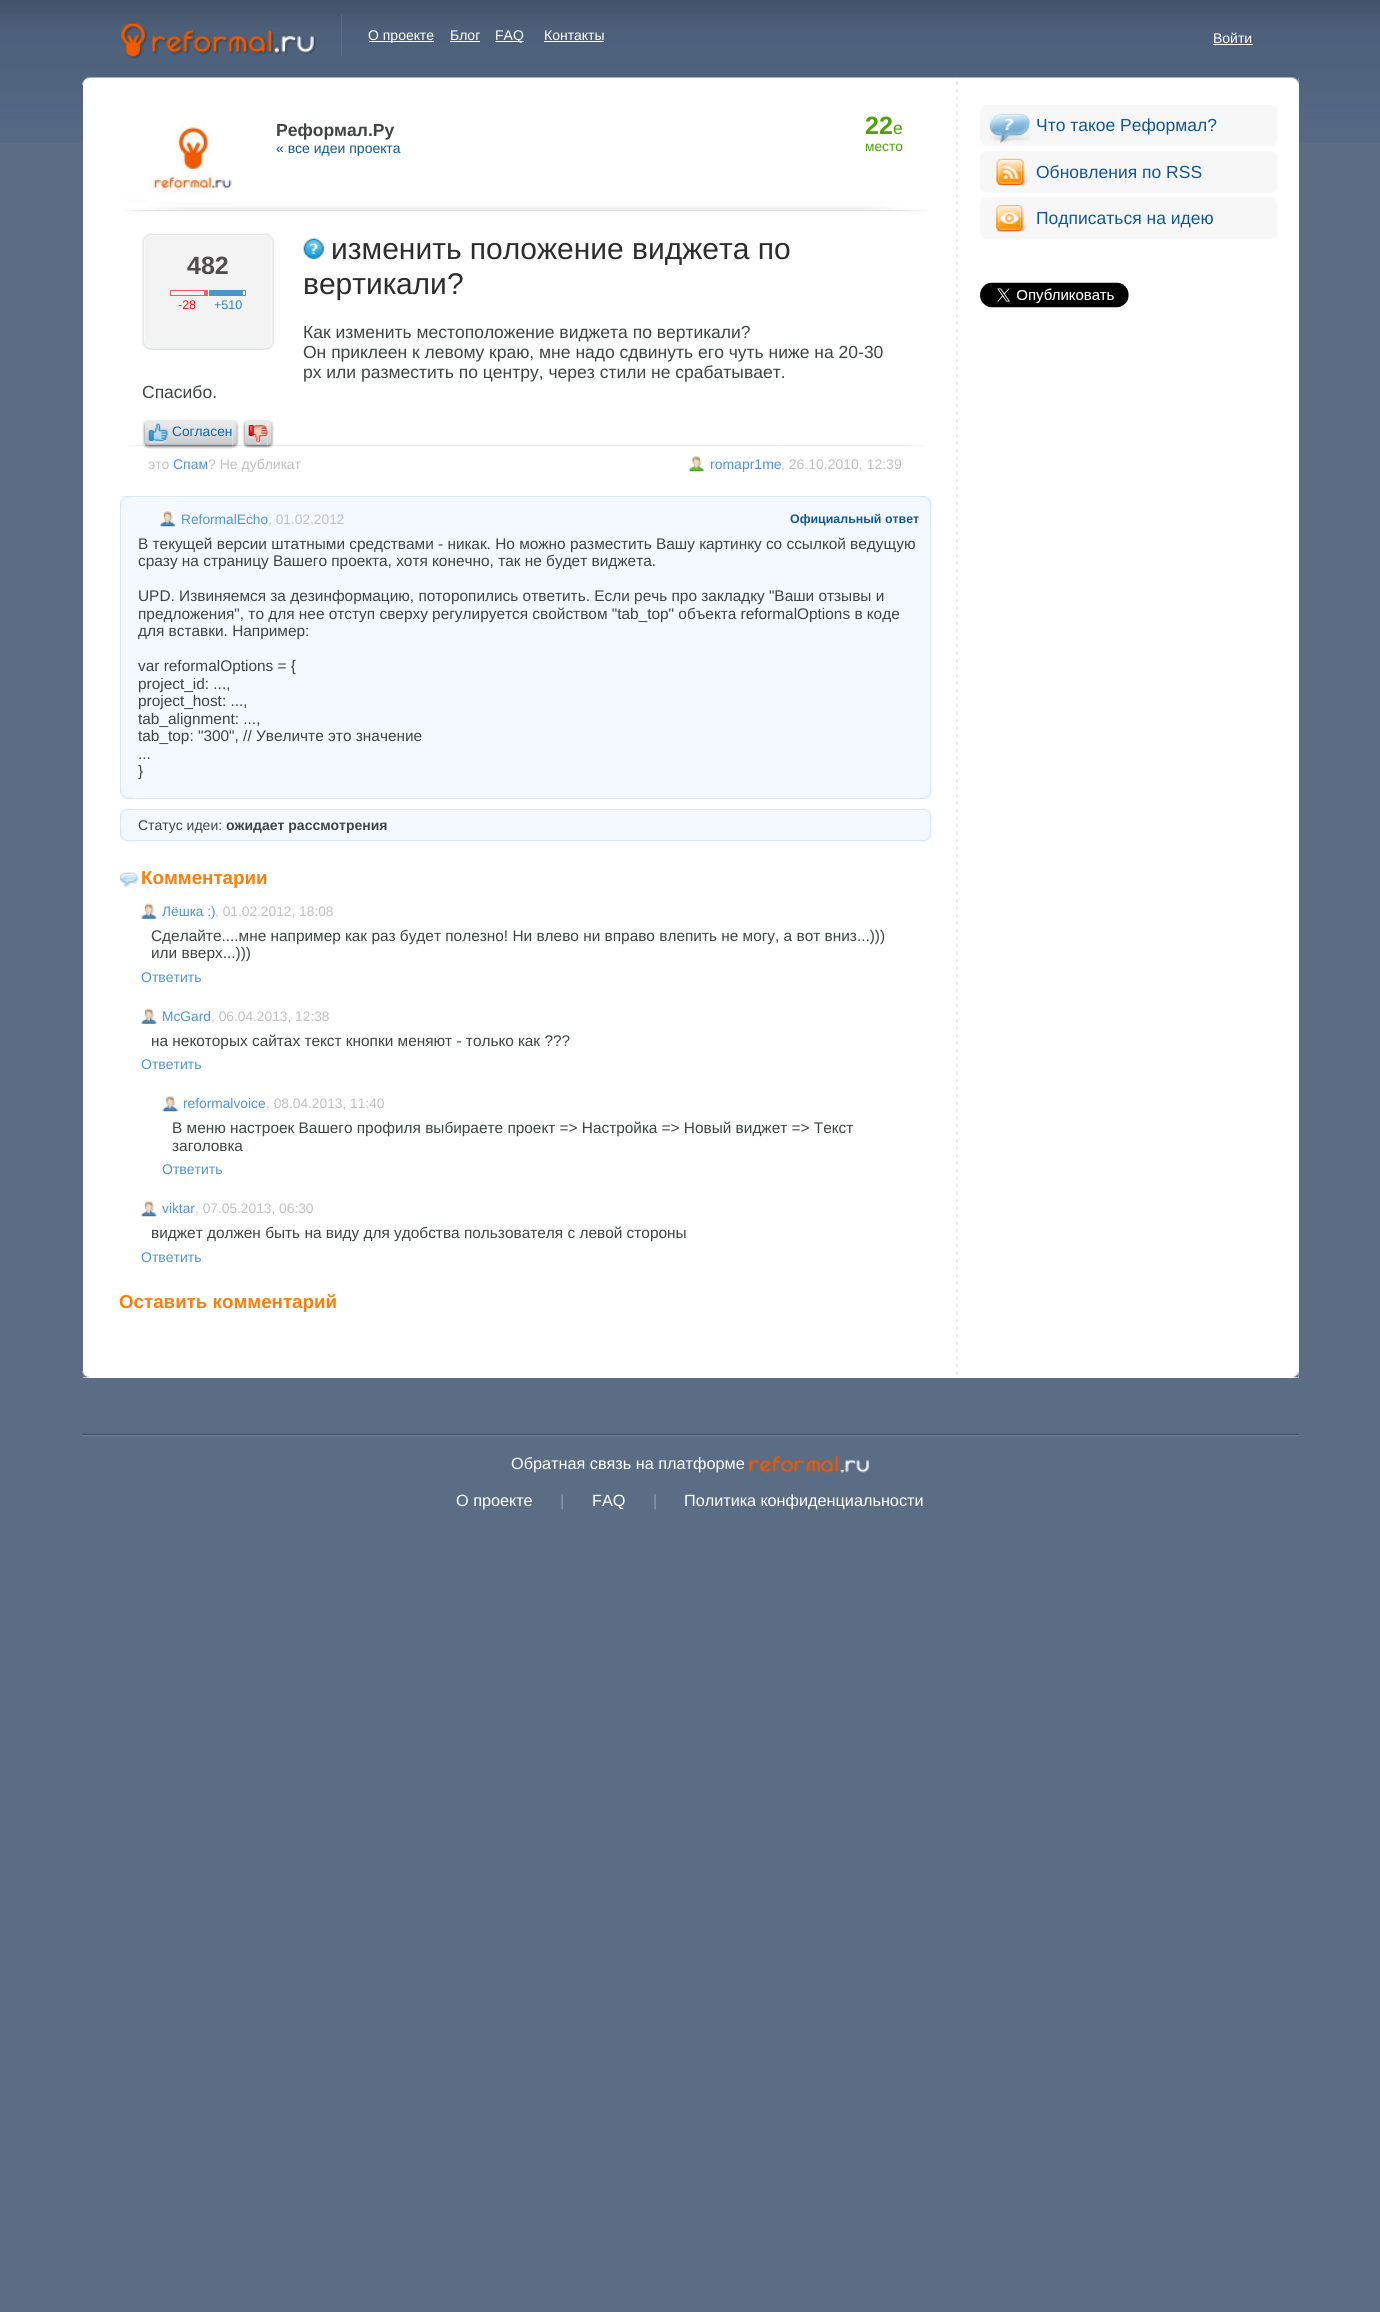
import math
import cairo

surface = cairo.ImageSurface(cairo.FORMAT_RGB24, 1380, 2312)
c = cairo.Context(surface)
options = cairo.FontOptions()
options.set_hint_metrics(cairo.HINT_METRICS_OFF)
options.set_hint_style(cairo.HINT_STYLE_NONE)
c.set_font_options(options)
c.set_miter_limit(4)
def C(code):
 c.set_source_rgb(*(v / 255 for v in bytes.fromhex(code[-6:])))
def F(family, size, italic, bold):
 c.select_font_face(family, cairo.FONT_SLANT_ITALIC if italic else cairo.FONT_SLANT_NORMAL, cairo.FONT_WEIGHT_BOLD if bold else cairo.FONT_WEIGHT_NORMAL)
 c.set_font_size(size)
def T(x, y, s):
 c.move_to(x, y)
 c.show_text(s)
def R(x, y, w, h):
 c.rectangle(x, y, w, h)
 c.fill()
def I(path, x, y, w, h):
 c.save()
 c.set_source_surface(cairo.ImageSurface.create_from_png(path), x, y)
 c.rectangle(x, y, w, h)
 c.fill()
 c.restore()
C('5b6d84')
c.paint()
I('1.png',0,1,1380,142)
C('445462')
R(0,0,1380,1)
I('2.png',121,23,195,36)
C('5d6e86')
R(341,15,1,41)
C('ffffff')
R(369,41,65,1)
F('Liberation Sans',14,0,0)
T(368,40,'О проекте')
T(450,40,'Блог')
R(450,41,30,1)
R(495,41,29,1)
T(495,40,'FAQ')
T(544,40,'Контакты')
R(544,41,60,1)
T(1213,43,'Войти')
R(1213,44,40,1)
R(83,78,1216,1300)
I('3.png',82,1371,1217,7)
I('4.png',82,77,1217,8)
I('5.png',956,77,2,1291)
I('6.png',123,199,806,13)
I('7.png',149,121,84,81)
F('Liberation Sans',17.5,0,1)
C('3f4543')
T(276,136,'Реформал.Ру')
F('Liberation Sans',14,0,0)
C('105895')
T(276,153,'« все идеи проекта')
F('Liberation Sans',25,0,1)
C('4ca206')
T(865,134,'22')
F('Liberation Sans',17.5,0,0)
T(893,134,'е')
F('Liberation Sans',13.75,0,0)
T(865,151,'место')
I('8.png',142,233,132,117)
F('Liberation Sans',25,0,1)
C('4e4c4c')
T(187,274,'482')
c.rectangle(170.5,290.5,37,5)
C('e06666')
c.set_line_width(1)
c.stroke()
R(204,291,3,4)
c.rectangle(209.5,290.5,36,5)
C('4c95c8')
c.stroke()
R(210,291,33,4)
F('Liberation Sans',12.5,0,0)
C('fc0707')
T(178,309,'-28')
C('3285c0')
T(214,309,'+510')
I('9.png',303,238,21,21)
F('Liberation Sans',30,0,0)
C('2d2d2d')
T(331,259,'изменить положение виджета по')
T(303,294,'вертикали?')
F('Liberation Sans',17.5,0,0)
C('3f4543')
T(303,338,'Как изменить местоположение виджета по вертикали?')
T(303,358,'Он приклеен к левому краю, мне надо сдвинуть его чуть ниже на 20-30')
T(303,378,'px или разместить по центру, через стили не срабатывает.')
T(142,398,'Спасибо.')
I('15.png',126,445,800,2)
I('10.png',232,420,7,28)
I('11.png',142,420,91,29)
I('12.png',148,423,20,20)
F('Liberation Sans',13.75,0,0)
C('0b68aa')
T(172,436,'Согласен')
I('10.png',267,420,7,28)
I('13.png',242,420,26,28)
I('14.png',248,425,20,19)
F('Liberation Sans',14,0,0)
C('c0c0c0')
T(148,469,'это')
C('4f94d0')
T(173,469,'Cпам')
C('c0c0c0')
T(208,469,'? Не дубликат')
I('16.png',688,456,17,16)
C('4f94d0')
T(710,469,'romapr1me')
C('c0c0c0')
T(781,469,', 26.10.2010, 12:39')
C('f3f9ff')
c.rectangle(120.5,496.5,810,302)
c.fill_preserve()
C('d8e7f3')
c.stroke()
I('17.png',120,496,11,10)
I('18.png',920,496,12,12)
I('19.png',120,787,14,12)
I('20.png',920,787,12,12)
I('21.png',160,511,17,16)
F('Liberation Sans',13.75,0,0)
C('4f94d0')
T(181,524,'ReformalEcho')
C('c0c0c0')
T(268,524,', 01.02.2012')
F('Liberation Sans',12.4,0,1)
C('105895')
T(790,523,'Официальный ответ')
F('Liberation Sans',15.4,0,0)
C('3f4543')
T(138,549,'В текущей версии штатными средствами - никак. Но можно разместить Вашу картинку со ссылкой ведущую')
T(138,566,'сразу на страницу Вашего проекта, хотя конечно, так не будет виджета.')
T(138,601,'UPD. Извиняемся за дезинформацию, поторопились ответить. Если речь про закладку "Ваши отзывы и')
T(138,619,'предложения", то для нее отступ сверху регулируется свойством "tab_top" объекта reformalOptions в коде')
T(138,636,'для вставки. Например:')
T(138,671,'var reformalOptions = {')
T(138,689,'project_id: ...,')
T(138,706,'project_host: ...,')
T(138,724,'tab_alignment: ...,')
T(138,741,'tab_top: "300", // Увеличте это значение')
T(138,759,'...')
T(138,776,'}')
C('f3f9ff')
c.rectangle(120.5,809.5,810,31)
c.fill_preserve()
C('d8e7f3')
c.stroke()
I('22.png',120,808,11,11)
I('23.png',920,808,12,12)
I('24.png',120,830,14,12)
I('25.png',920,830,12,12)
F('Liberation Sans',14,0,0)
C('3f4543')
T(138,830,'Статус идеи:')
F('Liberation Sans',14,0,1)
T(226,830,'ожидает рассмотрения')
I('26.png',120,872,19,16)
F('Liberation Sans',18.75,0,1)
C('ff7e0b')
T(141,884,'Комментарии')
I('27.png',141,903,17,16)
F('Liberation Sans',13.75,0,0)
C('4f94d0')
T(162,916,'Лёшка :)')
C('c0c0c0')
T(215,916,', 01.02.2012, 18:08')
F('Liberation Sans',15.4,0,0)
C('3f4543')
T(151,941,'Сделайте....мне например как раз будет полезно! Ни влево ни вправо влепить не могу, а вот вниз...)))')
T(151,958,'или вверх...)))')
F('Liberation Sans',14,0,0)
C('4f94d0')
T(141,982,'Ответить')
I('27.png',141,1008,17,16)
F('Liberation Sans',13.75,0,0)
T(162,1021,'McGard')
C('c0c0c0')
T(211,1021,', 06.04.2013, 12:38')
F('Liberation Sans',15.4,0,0)
C('3f4543')
T(151,1046,'на некоторых сайтах текст кнопки меняют - только как ???')
F('Liberation Sans',14,0,0)
C('4f94d0')
T(141,1069,'Ответить')
I('28.png',162,1096,17,16)
F('Liberation Sans',13.75,0,0)
T(183,1108,'reformalvoice')
C('c0c0c0')
T(266,1108,', 08.04.2013, 11:40')
F('Liberation Sans',15.4,0,0)
C('3f4543')
T(172,1133,'В меню настроек Вашего профиля выбираете проект => Настройка => Новый виджет => Текст')
T(172,1151,'заголовка')
F('Liberation Sans',14,0,0)
C('4f94d0')
T(162,1174,'Ответить')
I('29.png',141,1201,17,16)
F('Liberation Sans',13.75,0,0)
T(162,1213,'viktar')
C('c0c0c0')
T(195,1213,', 07.05.2013, 06:30')
F('Liberation Sans',15.4,0,0)
C('3f4543')
T(151,1238,'виджет должен быть на виду для удобства пользователя с левой стороны')
F('Liberation Sans',14,0,0)
C('4f94d0')
T(141,1262,'Ответить')
F('Liberation Sans',18.75,0,1)
C('ff7e0b')
T(119,1308,'Оставить комментарий')
I('30.png',980,105,298,41)
I('31.png',990,113,40,31)
F('Liberation Sans',17.5,0,0)
C('105895')
T(1036,131,'Что такое Реформал?')
I('32.png',980,151,298,42)
I('33.png',996,158,34,28)
T(1036,178,'Обновления по RSS')
I('34.png',980,197,298,42)
I('35.png',996,205,32,27)
T(1036,224,'Подписаться на идею')
I('36.png',980,282,149,26)
I('37.png',82,1433,1217,4)
F('Liberation Sans',16.25,0,0)
C('ffffff')
T(511,1469,'Обратная связь на платформе')
I('38.png',748,1456,121,17)
T(456,1506,'О проекте')
C('8b9cb0')
T(560,1506,'|')
C('ffffff')
T(592,1506,'FAQ')
C('8b9cb0')
T(653,1506,'|')
C('ffffff')
T(684,1506,'Политика конфиденциальности')
surface.write_to_png('o.png')
